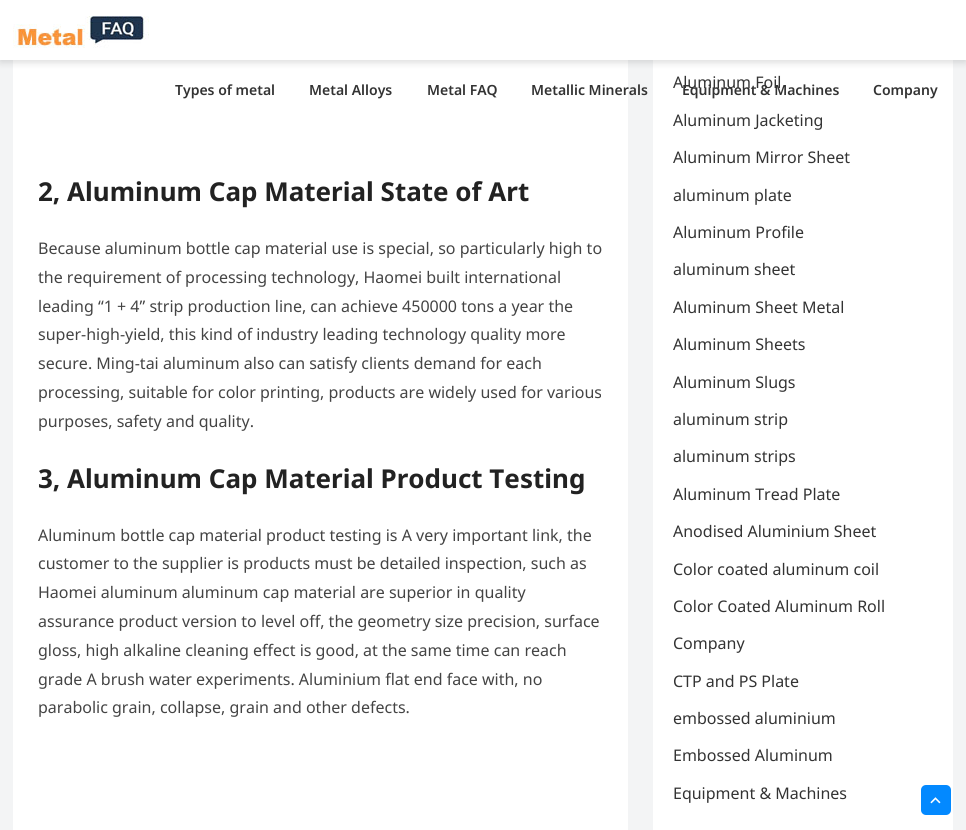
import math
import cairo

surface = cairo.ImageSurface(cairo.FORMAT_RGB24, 966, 830)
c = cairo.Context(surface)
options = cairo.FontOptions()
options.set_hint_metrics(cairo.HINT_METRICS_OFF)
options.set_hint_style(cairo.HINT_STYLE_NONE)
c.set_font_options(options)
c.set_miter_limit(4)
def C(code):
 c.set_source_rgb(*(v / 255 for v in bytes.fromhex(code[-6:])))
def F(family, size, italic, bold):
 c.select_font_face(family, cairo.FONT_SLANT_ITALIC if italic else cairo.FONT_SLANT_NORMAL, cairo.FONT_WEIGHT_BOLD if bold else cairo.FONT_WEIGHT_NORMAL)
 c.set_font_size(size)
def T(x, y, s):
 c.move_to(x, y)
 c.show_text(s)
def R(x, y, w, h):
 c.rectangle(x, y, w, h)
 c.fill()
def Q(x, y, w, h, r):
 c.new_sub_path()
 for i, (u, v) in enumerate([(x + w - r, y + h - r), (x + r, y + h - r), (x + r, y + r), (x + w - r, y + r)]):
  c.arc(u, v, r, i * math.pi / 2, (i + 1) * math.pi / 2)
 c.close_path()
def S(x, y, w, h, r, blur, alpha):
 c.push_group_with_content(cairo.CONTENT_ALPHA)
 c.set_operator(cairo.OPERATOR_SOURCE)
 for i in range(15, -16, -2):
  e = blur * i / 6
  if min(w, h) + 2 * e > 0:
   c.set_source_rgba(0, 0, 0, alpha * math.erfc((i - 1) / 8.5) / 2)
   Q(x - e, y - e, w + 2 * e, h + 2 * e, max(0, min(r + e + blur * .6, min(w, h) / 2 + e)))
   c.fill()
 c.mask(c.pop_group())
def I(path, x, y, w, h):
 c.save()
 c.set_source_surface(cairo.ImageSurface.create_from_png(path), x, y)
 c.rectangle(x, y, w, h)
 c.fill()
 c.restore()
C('f3f4f5')
c.paint()
C('ffffff')
R(13,60,615,770)
F('Noto Sans',26,0,1)
C('222222')
T(38,201,'2, Aluminum Cap Material State of Art')
F('Noto Sans',16,0,0)
C('444444')
T(38,254,'Because aluminum bottle cap material use is special, so particularly high to')
T(38,283,'the requirement of processing technology, Haomei built international')
T(38,312,'leading “1 + 4” strip production line, can achieve 450000 tons a year the')
T(38,340,'super-high-yield, this kind of industry leading technology quality more')
T(38,369,'secure. Ming-tai aluminum also can satisfy clients demand for each')
T(38,398,'processing, suitable for color printing, products are widely used for various')
T(38,427,'purposes, safety and quality.')
F('Noto Sans',26,0,1)
C('222222')
T(38,488,'3, Aluminum Cap Material Product Testing')
F('Noto Sans',16,0,0)
C('444444')
T(38,541,'Aluminum bottle cap material product testing is A very important link, the')
T(38,569,'customer to the supplier is products must be detailed inspection, such as')
T(38,598,'Haomei aluminum aluminum cap material are superior in quality')
T(38,627,'assurance product version to level off, the geometry size precision, surface')
T(38,656,'gloss, high alkaline cleaning effect is good, at the same time can reach')
T(38,685,'grade A brush water experiments. Aluminium flat end face with, no')
T(38,713,'parabolic grain, collapse, grain and other defects.')
C('ffffff')
R(653,60,300,770)
C('333333')
T(673,88,'Aluminum Foil')
T(673,126,'Aluminum Jacketing')
T(673,163,'Aluminum Mirror Sheet')
T(673,201,'aluminum plate')
T(673,238,'Aluminum Profile')
T(673,275,'aluminum sheet')
T(673,313,'Aluminum Sheet Metal')
T(673,350,'Aluminum Sheets')
T(673,388,'Aluminum Slugs')
T(673,425,'aluminum strip')
T(673,462,'aluminum strips')
T(673,500,'Aluminum Tread Plate')
T(673,537,'Anodised Aluminium Sheet')
T(673,575,'Color coated aluminum coil')
T(673,612,'Color Coated Aluminum Roll')
T(673,649,'Company')
T(673,687,'CTP and PS Plate')
T(673,724,'embossed aluminium')
T(673,761,'Embossed Aluminum')
T(673,799,'Equipment & Machines')
C('000000')
S(0,2,966,60,0,4,.15)
C('ffffff')
R(0,0,966,60)
I('1.png',13,16,136,32)
F('Noto Sans SemiBold',14,0,0)
C('333333')
T(175,95,'Types of metal')
T(309,95,'Metal Alloys')
T(427,95,'Metal FAQ')
T(531,95,'Metallic Minerals')
T(682,95,'Equipment & Machines')
T(873,95,'Company')
C('0389ff')
Q(921,785,30,30,5)
c.fill()
I('2.png',930,797,11,7)
surface.write_to_png('o.png')
